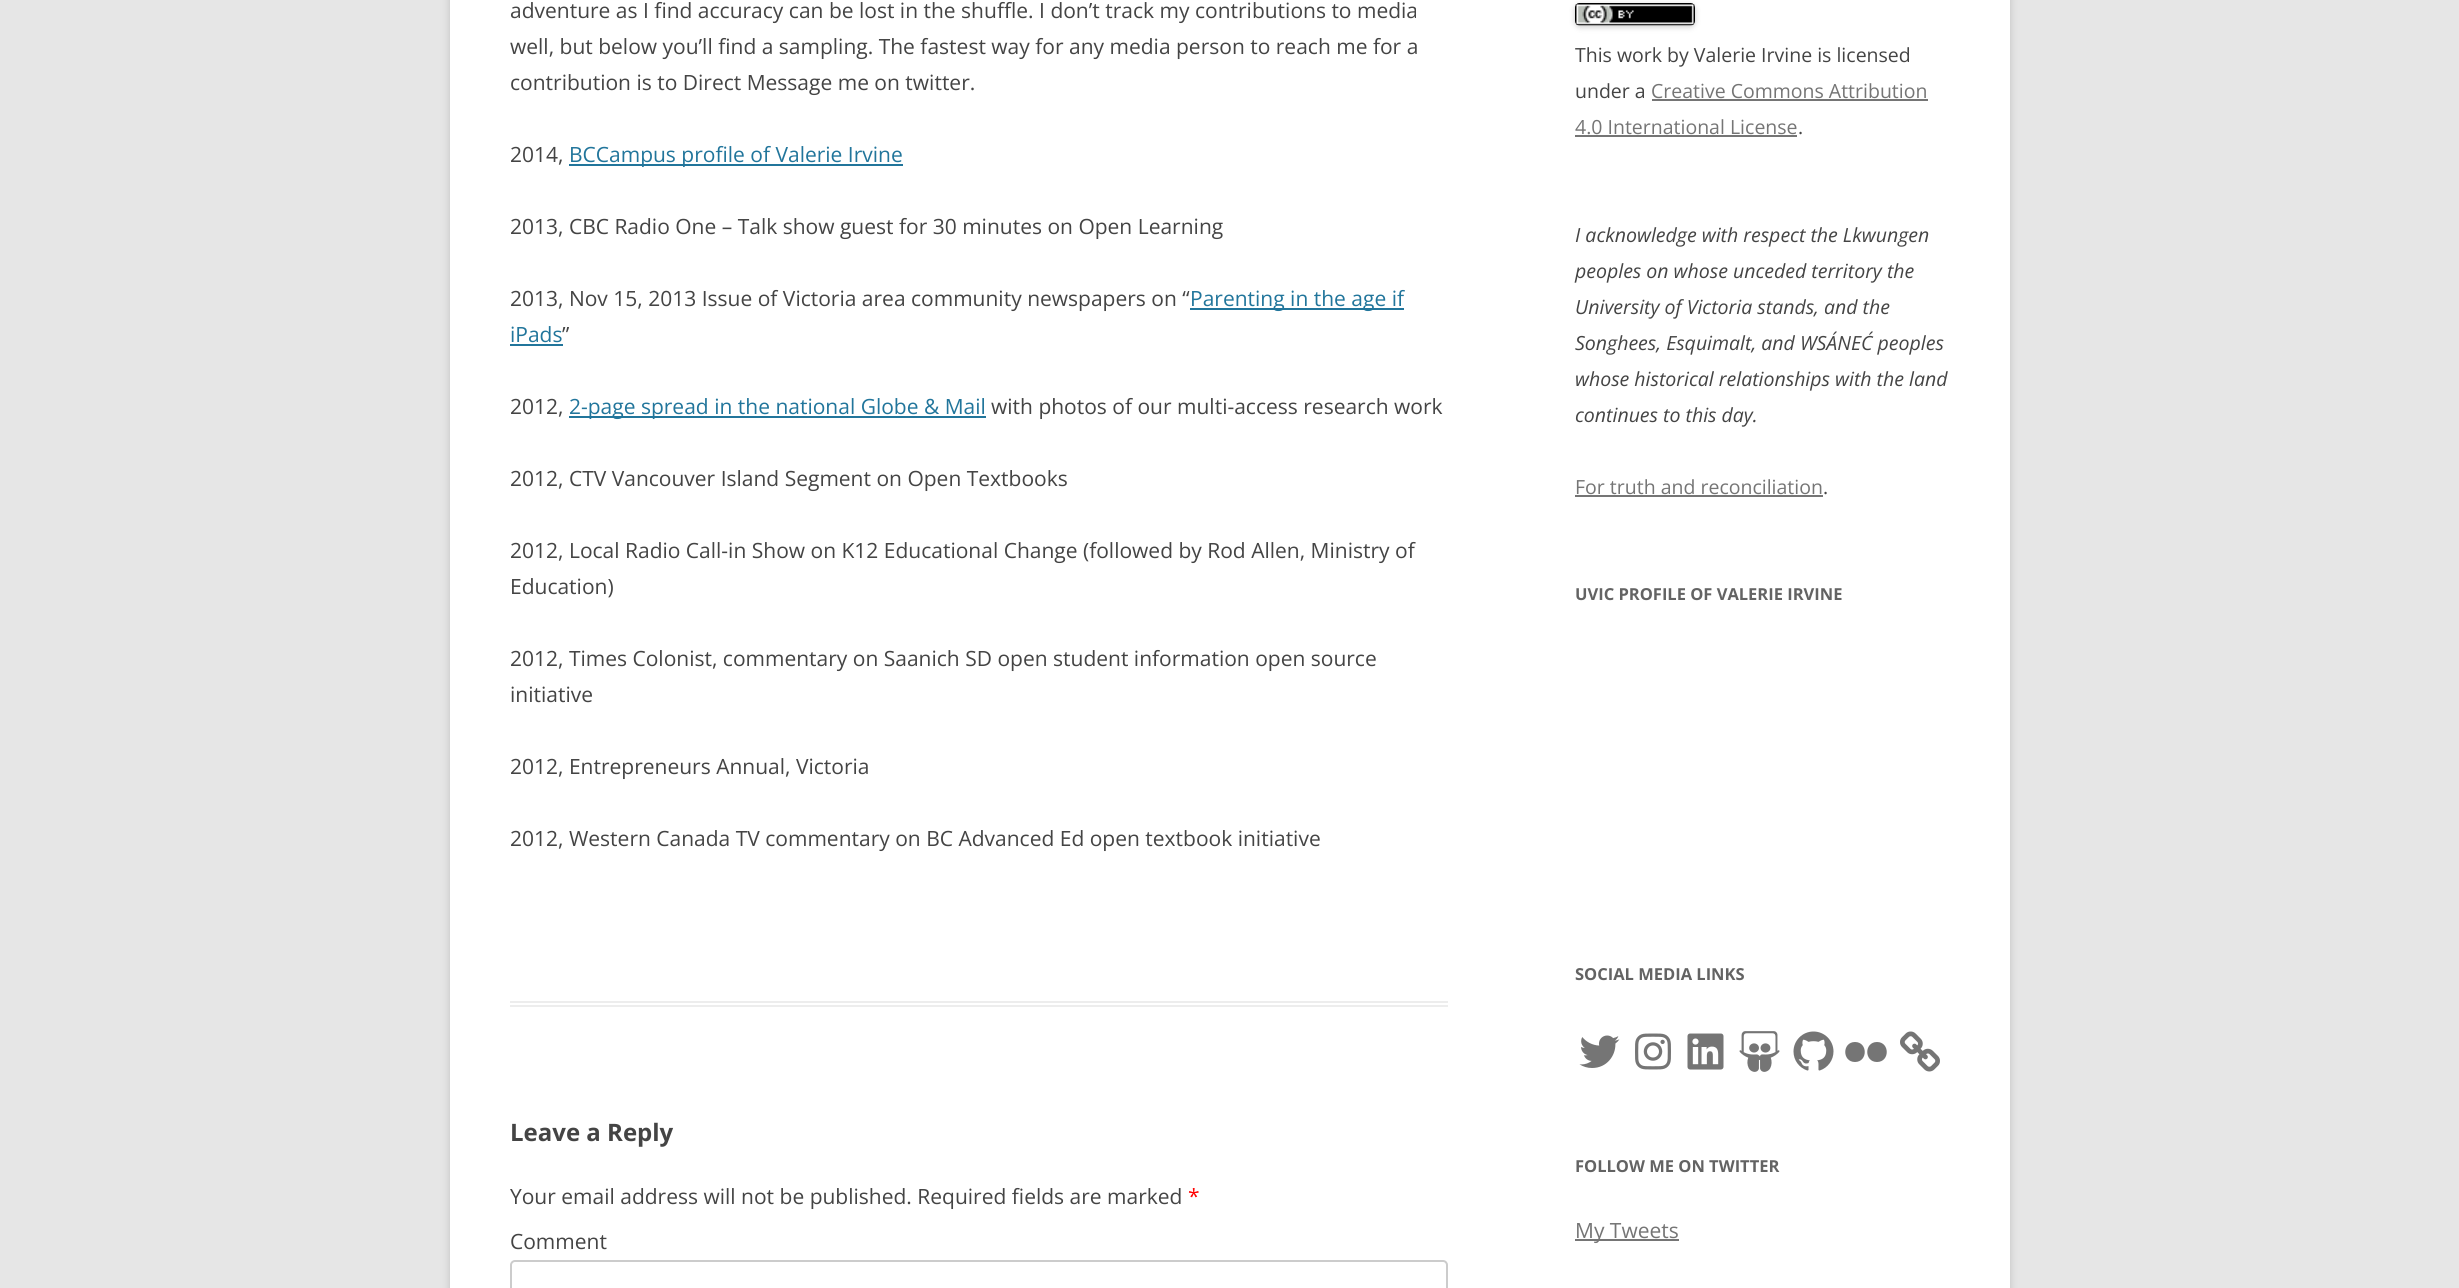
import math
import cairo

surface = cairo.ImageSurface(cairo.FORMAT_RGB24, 2459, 1288)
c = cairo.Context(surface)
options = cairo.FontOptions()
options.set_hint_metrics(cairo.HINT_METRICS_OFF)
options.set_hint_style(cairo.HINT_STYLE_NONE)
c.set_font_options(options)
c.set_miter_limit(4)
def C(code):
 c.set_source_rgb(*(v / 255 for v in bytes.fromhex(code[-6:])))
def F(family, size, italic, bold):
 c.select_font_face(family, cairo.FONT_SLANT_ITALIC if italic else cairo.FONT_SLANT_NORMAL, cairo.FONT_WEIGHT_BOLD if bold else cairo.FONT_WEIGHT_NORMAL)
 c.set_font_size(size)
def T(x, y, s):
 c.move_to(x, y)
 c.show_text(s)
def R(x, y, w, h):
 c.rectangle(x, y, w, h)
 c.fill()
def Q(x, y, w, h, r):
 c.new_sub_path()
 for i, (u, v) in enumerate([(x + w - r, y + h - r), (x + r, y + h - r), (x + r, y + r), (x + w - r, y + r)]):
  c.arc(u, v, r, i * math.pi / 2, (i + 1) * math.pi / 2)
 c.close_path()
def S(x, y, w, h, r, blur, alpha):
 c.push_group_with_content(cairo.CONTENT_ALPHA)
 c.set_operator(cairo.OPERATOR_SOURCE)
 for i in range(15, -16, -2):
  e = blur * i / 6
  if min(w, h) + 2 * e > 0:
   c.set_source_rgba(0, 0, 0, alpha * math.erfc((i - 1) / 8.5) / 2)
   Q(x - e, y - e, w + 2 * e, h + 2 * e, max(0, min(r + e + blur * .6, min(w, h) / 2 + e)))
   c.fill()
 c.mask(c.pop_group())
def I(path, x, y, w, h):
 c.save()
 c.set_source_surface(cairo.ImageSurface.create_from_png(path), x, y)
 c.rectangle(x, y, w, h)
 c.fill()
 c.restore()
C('e6e6e6')
c.paint()
C('646464')
S(450,-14,1560,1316,0,4.5,.3)
C('ffffff')
R(450,0,1560,1288)
C('ededed')
R(510,1001,938,2)
R(510,1005,938,2)
F('Open Sans',21,0,0)
C('444444')
T(510,18,'adventure as I find accuracy can be lost in the shuffle. I don’t track my contributions to media')
T(510,54,'well, but below you’ll find a sampling. The fastest way for any media person to reach me for a')
T(510,90,'contribution is to Direct Message me on twitter.')
T(510,162,'2014,')
C('21759b')
R(569,164,334,2)
T(569,162,'BCCampus profile of Valerie Irvine')
C('444444')
T(510,234,'2013, CBC Radio One – Talk show guest for 30 minutes on Open Learning')
T(510,306,'2013, Nov 15, 2013 Issue of Victoria area community newspapers on “')
C('21759b')
R(1190,308,214,2)
T(1190,306,'Parenting in the age if')
T(510,342,'iPads')
R(510,344,53,2)
C('444444')
T(562,342,'”')
T(510,414,'2012,')
C('21759b')
R(569,416,417,2)
T(569,414,'2-page spread in the national Globe & Mail')
C('444444')
T(991,414,'with photos of our multi-access research work')
T(510,486,'2012, CTV Vancouver Island Segment on Open Textbooks')
T(510,558,'2012, Local Radio Call-in Show on K12 Educational Change (followed by Rod Allen, Ministry of')
T(510,594,'Education)')
T(510,666,'2012, Times Colonist, commentary on Saanich SD open student information open source')
T(510,702,'initiative')
T(510,774,'2012, Entrepreneurs Annual, Victoria')
T(510,846,'2012, Western Canada TV commentary on BC Advanced Ed open textbook initiative')
F('Open Sans',24,0,1)
T(510,1141,'Leave a Reply')
F('Open Sans',21,0,0)
T(510,1204,'Your email address will not be published. Required fields are marked')
C('ff0000')
T(1188,1204,'*')
C('444444')
T(510,1249,'Comment')
Q(511,1261,936,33,4)
C('cccccc')
c.stroke()
C('000000')
S(1575,5,120,22,5,3,.2)
I('1.png',1575,3,120,23)
F('Open Sans',19.5,0,0)
C('444444')
T(1575,62,'This work by Valerie Irvine is licensed')
T(1575,98,'under a')
C('757575')
T(1651,98,'Creative Commons Attribution')
R(1652,99,276,2)
T(1575,134,'4.0 International License')
R(1575,135,222,2)
C('444444')
T(1798,134,'.')
F('Open Sans',19.5,1,0)
T(1575,242,'I acknowledge with respect the Lkwungen')
T(1575,278,'peoples on whose unceded territory the')
T(1575,314,'University of Victoria stands, and the')
T(1575,350,'Songhees, Esquimalt, and WSÁNEĆ peoples')
T(1575,386,'whose historical relationships with the land')
T(1575,422,'continues to this day.')
F('Open Sans',19.5,0,0)
C('757575')
T(1575,494,'For truth and reconciliation')
R(1575,495,248,2)
C('444444')
T(1823,494,'.')
F('Open Sans',16.5,0,1)
C('636363')
T(1575,600,'UVIC PROFILE OF VALERIE IRVINE')
T(1575,980,'SOCIAL MEDIA LINKS')
I('2.png',1579,1035,41,33)
I('3.png',1635,1033,36,37)
I('4.png',1687,1033,37,37)
I('5.png',1739,1031,41,41)
I('6.png',1793,1031,41,40)
C('757575')
c.new_path()
c.move_to(1855,1042)
c.curve_to(1842,1042,1842,1062,1855,1062)
c.curve_to(1868,1062,1868,1042,1855,1042)
c.close_path()
c.move_to(1877,1042)
c.curve_to(1864,1042,1864,1062,1877,1062)
c.curve_to(1890,1062,1890,1042,1877,1042)
c.close_path()
c.fill()
I('7.png',1900,1031,40,41)
C('636363')
T(1575,1172,'FOLLOW ME ON TWITTER')
C('757575')
R(1575,1239,104,2)
F('Open Sans',21,0,0)
T(1575,1238,'My Tweets')
surface.write_to_png('o.png')
